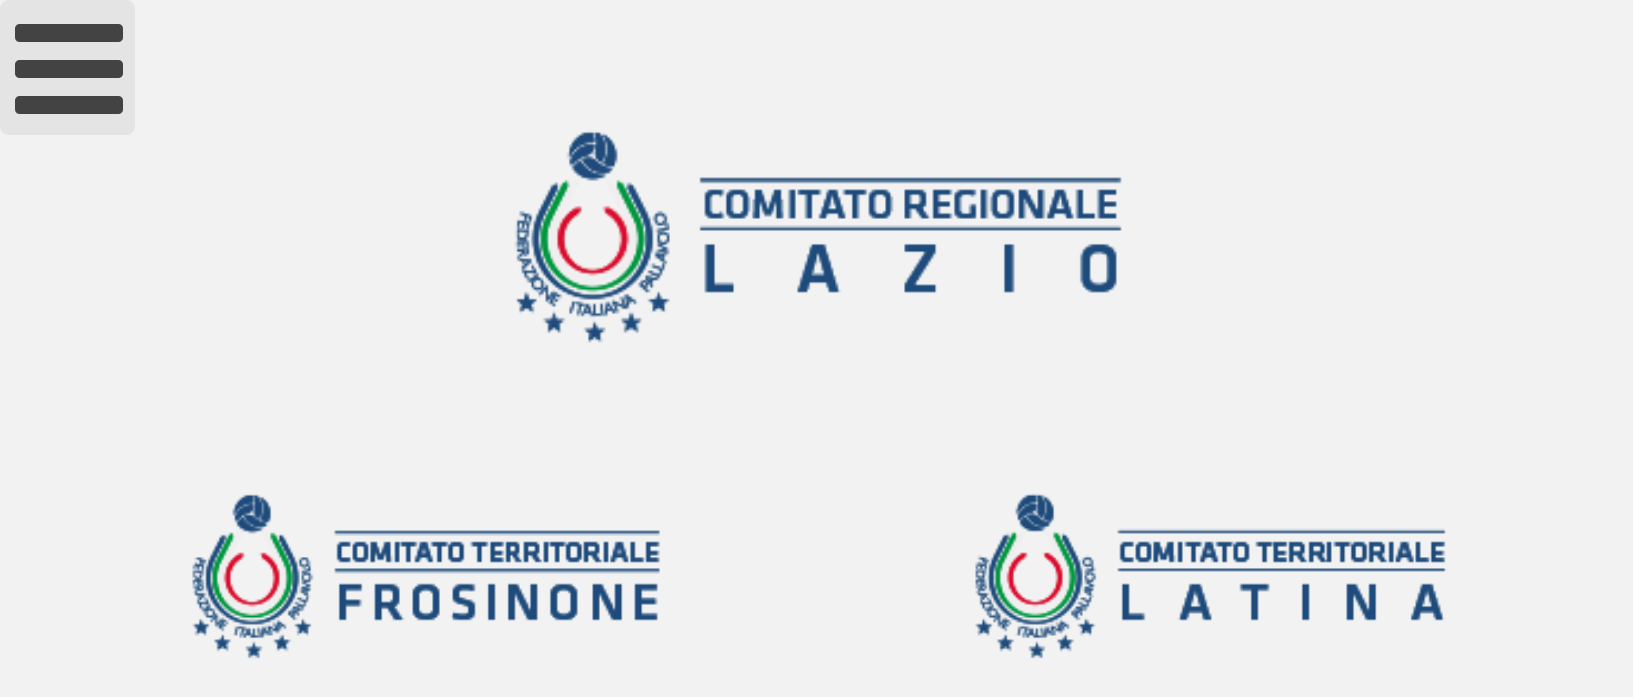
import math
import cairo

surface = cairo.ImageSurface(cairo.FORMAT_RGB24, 1633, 697)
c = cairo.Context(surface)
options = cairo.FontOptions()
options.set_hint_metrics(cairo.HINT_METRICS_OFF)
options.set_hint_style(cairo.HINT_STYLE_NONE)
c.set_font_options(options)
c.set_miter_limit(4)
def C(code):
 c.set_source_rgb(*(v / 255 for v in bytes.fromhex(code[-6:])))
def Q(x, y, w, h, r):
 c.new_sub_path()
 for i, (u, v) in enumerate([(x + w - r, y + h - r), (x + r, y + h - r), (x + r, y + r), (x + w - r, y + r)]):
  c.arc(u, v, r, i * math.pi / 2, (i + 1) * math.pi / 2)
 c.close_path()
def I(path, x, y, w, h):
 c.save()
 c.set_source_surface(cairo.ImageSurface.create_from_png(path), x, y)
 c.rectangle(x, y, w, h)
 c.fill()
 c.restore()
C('f2f2f2')
c.paint()
C('e4e4e4')
Q(0,0,135,135,9)
c.fill()
I('1.png',15,24,108,90)
I('2.png',514,130,608,213)
I('3.png',192,494,468,165)
I('4.png',975,493,472,166)
surface.write_to_png('o.png')
